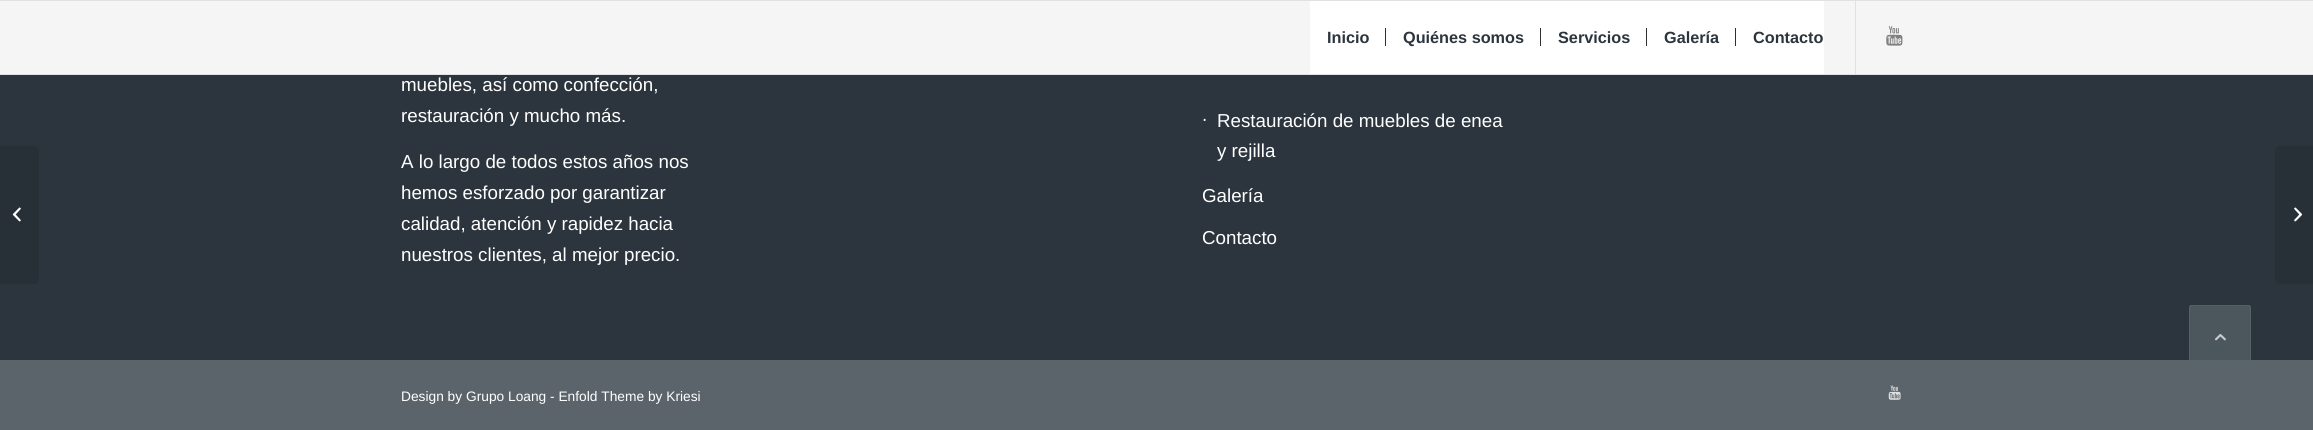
import math
import cairo

surface = cairo.ImageSurface(cairo.FORMAT_RGB24, 2313, 430)
c = cairo.Context(surface)
options = cairo.FontOptions()
options.set_hint_metrics(cairo.HINT_METRICS_OFF)
options.set_hint_style(cairo.HINT_STYLE_NONE)
c.set_font_options(options)
c.set_miter_limit(4)
def C(code):
 c.set_source_rgb(*(v / 255 for v in bytes.fromhex(code[-6:])))
def F(family, size, italic, bold):
 c.select_font_face(family, cairo.FONT_SLANT_ITALIC if italic else cairo.FONT_SLANT_NORMAL, cairo.FONT_WEIGHT_BOLD if bold else cairo.FONT_WEIGHT_NORMAL)
 c.set_font_size(size)
def T(x, y, s):
 c.move_to(x, y)
 c.show_text(s)
def R(x, y, w, h):
 c.rectangle(x, y, w, h)
 c.fill()
def Q(x, y, w, h, r):
 c.new_sub_path()
 for i, (u, v) in enumerate([(x + w - r, y + h - r), (x + r, y + h - r), (x + r, y + r), (x + w - r, y + r)]):
  c.arc(u, v, r, i * math.pi / 2, (i + 1) * math.pi / 2)
 c.close_path()
def I(path, x, y, w, h):
 c.save()
 c.set_source_surface(cairo.ImageSurface.create_from_png(path), x, y)
 c.rectangle(x, y, w, h)
 c.fill()
 c.restore()
C('2c353d')
c.paint()
C('283037')
c.new_path()
c.move_to(0,146)
c.line_to(34,146)
c.curve_to(37,146,39,148,39,151)
c.line_to(39,279)
c.curve_to(39,282,37,284,34,284)
c.line_to(0,284)
c.close_path()
c.fill()
I('1.png',12,207,9,15)
c.set_source_rgba(1,1,1,0.95)
R(0,1,2313,73)
C('e1e1e1')
R(0,0,2313,1)
R(0,74,2313,1)
R(1855,1,1,73)
C('ffffff')
R(1310,1,514,73)
F('Liberation Sans',16.25,0,1)
C('2c353d')
T(1327,43,'Inicio')
T(1403,43,'Quiénes somos')
C('2c3033')
R(1385,28,1,18)
C('2c353d')
T(1558,43,'Servicios')
C('2c3033')
R(1540,28,1,18)
C('2c353d')
T(1664,43,'Galería')
C('2c3033')
R(1646,28,1,18)
C('2c353d')
T(1753,43,'Contacto')
C('2c3033')
R(1735,28,1,18)
I('2.png',1886,26,17,20)
F('Liberation Sans',18.75,0,0)
C('ffffff')
T(401,91,'muebles, así como confección,')
T(401,122,'restauración y mucho más.')
T(401,168,'A lo largo de todos estos años nos')
T(401,199,'hemos esforzado por garantizar')
T(401,230,'calidad, atención y rapidez hacia')
T(401,261,'nuestros clientes, al mejor precio.')
T(1202,125,'∙')
T(1217,127,'Restauración de muebles de enea')
T(1217,157,'y rejilla')
T(1202,202,'Galería')
T(1202,244,'Contacto')
C('5b646b')
R(0,360,2313,70)
F('Liberation Sans',13.75,0,0)
C('ffffff')
T(401,401,'Design by Grupo Loang - Enfold Theme by Kriesi')
I('3.png',1888,385,13,15)
C('283037')
c.new_path()
c.move_to(2280,146)
c.line_to(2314,146)
c.line_to(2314,284)
c.line_to(2280,284)
c.curve_to(2277,284,2275,282,2275,279)
c.line_to(2275,151)
c.curve_to(2275,148,2277,146,2280,146)
c.close_path()
c.fill()
I('4.png',2294,207,9,15)
c.set_source_rgba(0.357,0.392,0.42,0.7)
Q(2189,305,62,63,2.5)
c.fill()
Q(2189.5,305.5,61,62,2)
c.set_line_width(1)
c.stroke()
I('5.png',2215,334,11,7)
surface.write_to_png('o.png')
